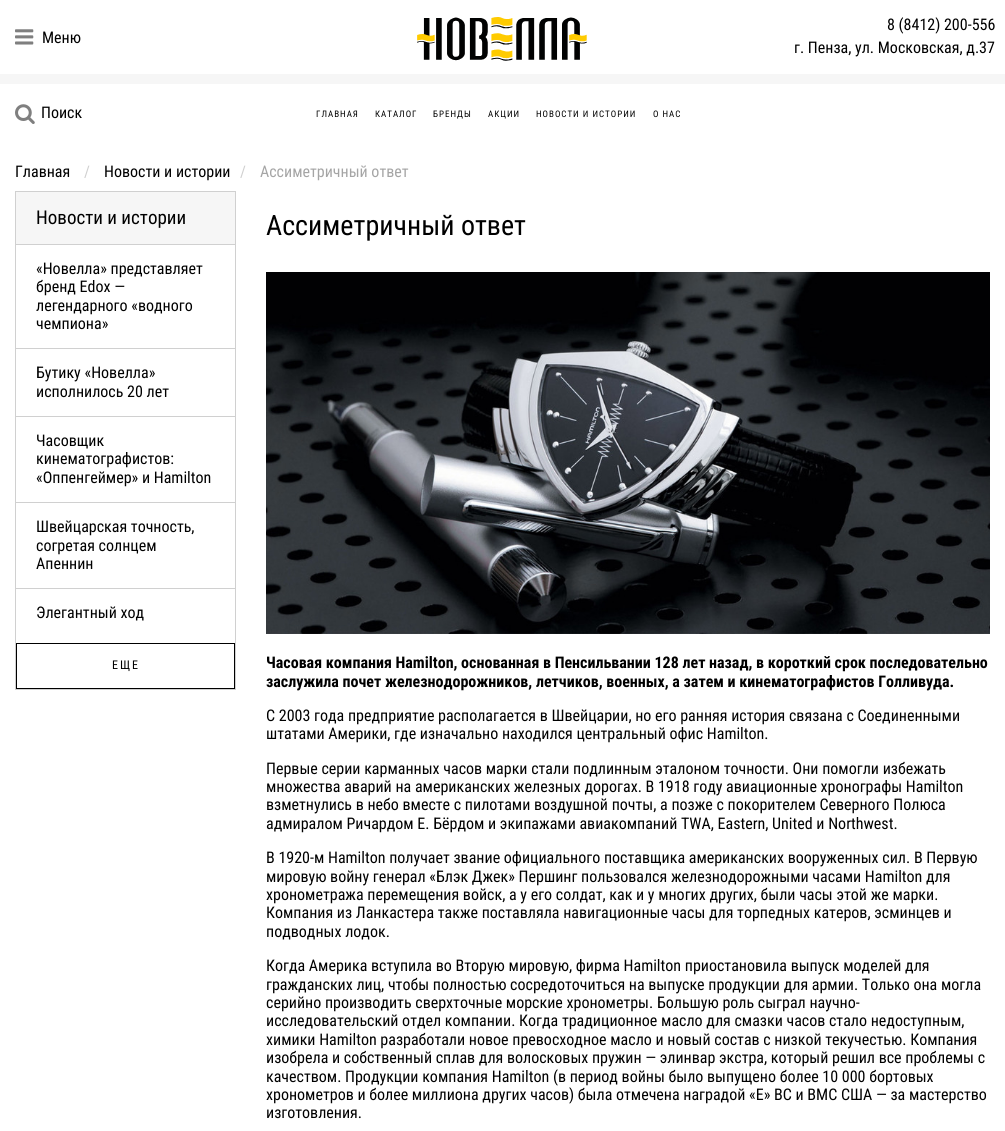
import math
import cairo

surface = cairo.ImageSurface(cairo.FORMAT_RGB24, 1005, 1131)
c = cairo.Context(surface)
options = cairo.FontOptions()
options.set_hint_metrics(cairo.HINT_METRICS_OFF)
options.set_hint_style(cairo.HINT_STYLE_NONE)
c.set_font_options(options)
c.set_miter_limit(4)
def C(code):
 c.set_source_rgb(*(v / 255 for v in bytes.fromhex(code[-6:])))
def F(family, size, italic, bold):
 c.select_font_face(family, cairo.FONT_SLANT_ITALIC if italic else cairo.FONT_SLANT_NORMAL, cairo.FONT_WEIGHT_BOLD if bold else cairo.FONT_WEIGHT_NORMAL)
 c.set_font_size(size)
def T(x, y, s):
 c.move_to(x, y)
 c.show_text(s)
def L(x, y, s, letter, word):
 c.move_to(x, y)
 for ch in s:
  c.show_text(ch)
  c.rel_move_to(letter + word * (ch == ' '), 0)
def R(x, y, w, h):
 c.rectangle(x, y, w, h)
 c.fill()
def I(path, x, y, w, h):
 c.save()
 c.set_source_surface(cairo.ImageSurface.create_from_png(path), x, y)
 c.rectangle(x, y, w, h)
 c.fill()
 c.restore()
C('ffffff')
c.paint()
C('f6f6f6')
R(0,74,1005,10)
I('1.png',15,29,19,16)
F('Roboto Condensed',16,0,0)
C('000000')
T(42,43,'Меню')
I('2.png',417,17,170,44)
T(887,30,'8 (8412) 200-556')
T(794,53,'г. Пенза, ул. Московская, д.37')
I('3.png',15,104,20,20)
T(41,118,'Поиск')
F('Roboto Condensed',9,0,0)
L(316,117,'ГЛАВНАЯ',1,0)
L(375,117,'КАТАЛОГ',1,0)
L(433,117,'БРЕНДЫ',1,0)
L(488,117,'АКЦИИ',1,0)
L(536,117,'НОВОСТИ И ИСТОРИИ',1,0)
L(653,117,'О НАС',1,0)
F('Roboto Condensed',16,0,0)
T(15,177,'Главная')
C('d0d0d0')
T(84,177,'/')
C('000000')
T(104,177,'Новости и истории')
C('d0d0d0')
T(240,177,'/')
C('a5a5a5')
T(260,177,'Ассиметричный ответ')
C('f6f6f6')
R(16,192,219,52)
c.rectangle(15.5,191.5,220,498)
C('d0d0d0')
c.set_line_width(1)
c.stroke()
F('Roboto Condensed',19,0,0)
C('000000')
T(36,224,'Новости и истории')
C('d0d0d0')
R(16,244,219,1)
F('Roboto Condensed',16,0,0)
C('000000')
T(36,274,'«Новелла» представляет')
T(36,292,'бренд Edox —')
T(36,311,'легендарного «водного')
T(36,329,'чемпиона»')
C('d0d0d0')
R(16,348,219,1)
C('000000')
T(36,378,'Бутику «Новелла»')
T(36,397,'исполнилось 20 лет')
C('d0d0d0')
R(16,416,219,1)
C('000000')
T(36,446,'Часовщик')
T(36,464,'кинематографистов:')
T(36,483,'«Оппенгеймер» и Hamilton')
C('d0d0d0')
R(16,502,219,1)
C('000000')
T(36,532,'Швейцарская точность,')
T(36,551,'согретая солнцем')
T(36,569,'Апеннин')
C('d0d0d0')
R(16,588,219,1)
C('000000')
T(36,618,'Элегантный ход')
c.rectangle(16.5,643.5,218,45)
c.stroke()
F('Roboto Condensed',12,0,0)
L(112,669,'ЕЩЕ',2,0)
F('Roboto Condensed',28,0,0)
T(266,235,'Ассиметричный ответ')
I('4.png',266,272,724,362)
F('Roboto Condensed',16,0,1)
T(266,668,'Часовая компания Hamilton, основанная в Пенсильвании 128 лет назад, в короткий срок последовательно')
T(266,687,'заслужила почет железнодорожников, летчиков, военных, а затем и кинематографистов Голливуда.')
F('Roboto Condensed',16,0,0)
T(266,721,'С 2003 года предприятие располагается в Швейцарии, но его ранняя история связана с Соединенными')
T(266,739,'штатами Америки, где изначально находился центральный офис Hamilton.')
T(266,774,'Первые серии карманных часов марки стали подлинным эталоном точности. Они помогли избежать')
T(266,792,'множества аварий на американских железных дорогах. В 1918 году авиационные хронографы Hamilton')
T(266,810,'взметнулись в небо вместе с пилотами воздушной почты, а позже с покорителем Северного Полюса')
T(266,829,'адмиралом Ричардом Е. Бёрдом и экипажами авиакомпаний TWA, Eastern, United и Northwest.')
T(266,863,'В 1920-м Hamilton получает звание официального поставщика американских вооруженных сил. В Первую')
T(266,882,'мировую войну генерал «Блэк Джек» Першинг пользовался железнодорожными часами Hamilton для')
T(266,900,'хронометража перемещения войск, а у его солдат, как и у многих других, были часы этой же марки.')
T(266,918,'Компания из Ланкастера также поставляла навигационные часы для торпедных катеров, эсминцев и')
T(266,937,'подводных лодок.')
T(266,971,'Когда Америка вступила во Вторую мировую, фирма Hamilton приостановила выпуск моделей для')
T(266,990,'гражданских лиц, чтобы полностью сосредоточиться на выпуске продукции для армии. Только она могла')
T(266,1008,'серийно производить сверхточные морские хронометры. Большую роль сыграл научно-')
T(266,1026,'исследовательский отдел компании. Когда традиционное масло для смазки часов стало недоступным,')
T(266,1045,'химики Hamilton разработали новое превосходное масло и новый состав с низкой текучестью. Компания')
T(266,1063,'изобрела и собственный сплав для волосковых пружин — элинвар экстра, который решил все проблемы с')
T(266,1082,'качеством. Продукции компания Hamilton (в период войны было выпущено более 10 000 бортовых')
T(266,1100,'хронометров и более миллиона других часов) была отмечена наградой «E» ВС и ВМС США — за мастерство')
T(266,1118,'изготовления.')
surface.write_to_png('o.png')
